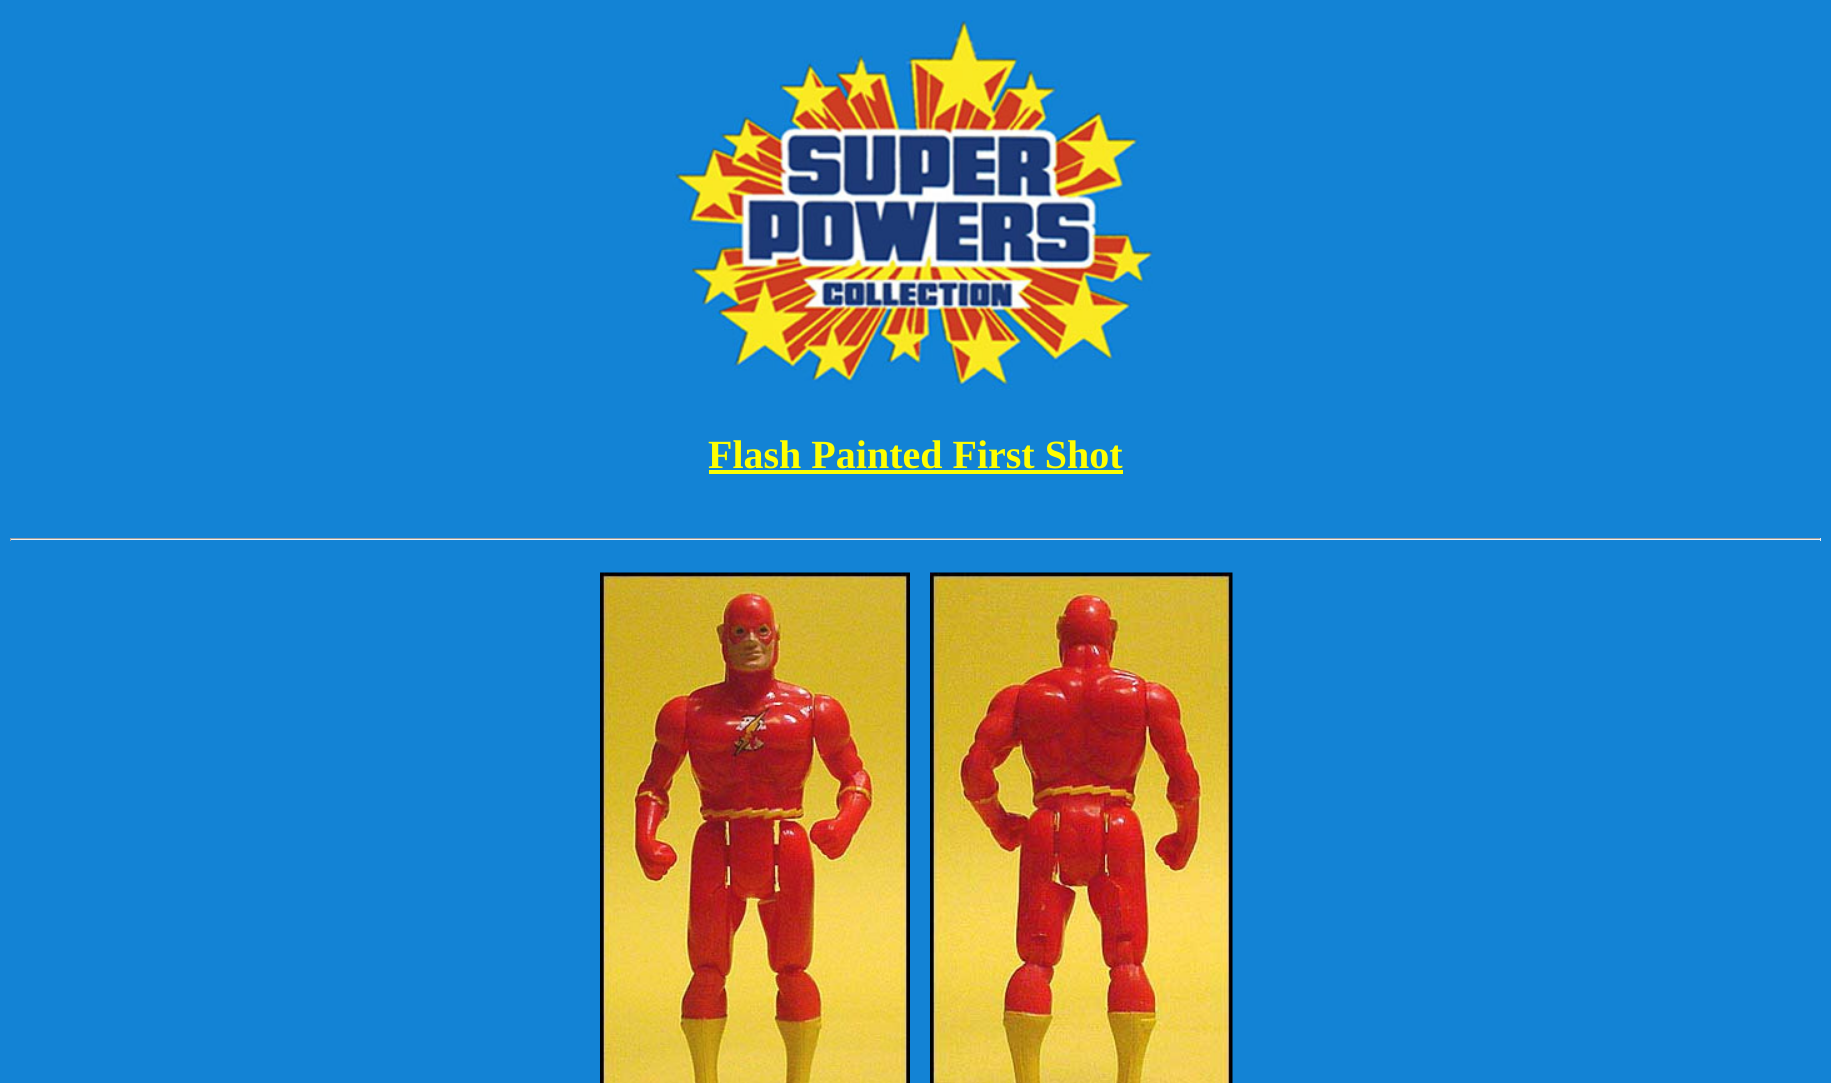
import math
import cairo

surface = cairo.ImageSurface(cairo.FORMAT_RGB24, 1831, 1083)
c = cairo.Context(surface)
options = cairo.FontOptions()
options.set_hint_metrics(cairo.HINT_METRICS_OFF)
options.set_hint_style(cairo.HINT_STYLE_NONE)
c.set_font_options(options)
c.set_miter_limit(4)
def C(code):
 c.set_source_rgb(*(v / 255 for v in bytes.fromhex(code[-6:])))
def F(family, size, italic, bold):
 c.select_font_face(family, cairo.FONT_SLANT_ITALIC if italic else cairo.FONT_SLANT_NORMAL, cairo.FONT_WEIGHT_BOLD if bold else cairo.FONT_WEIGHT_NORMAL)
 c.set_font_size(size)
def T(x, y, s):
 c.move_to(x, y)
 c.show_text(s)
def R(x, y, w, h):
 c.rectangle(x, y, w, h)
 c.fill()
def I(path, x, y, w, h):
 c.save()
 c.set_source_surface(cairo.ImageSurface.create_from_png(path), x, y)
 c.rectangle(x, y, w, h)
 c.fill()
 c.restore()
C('1383d5')
c.paint()
I('1.png',672,20,481,370)
F('Liberation Serif',40,0,1)
C('ffff00')
T(708,468,'Flash Painted First Shot')
R(709,470,414,4)
C('9f9f9f')
R(10,538,1811,1)
C('eeeeee')
R(1820,538,1,3)
R(10,539,1811,1)
C('9f9f9f')
R(10,538,1,3)
I('2.png',600,572,310,511)
I('3.png',930,572,303,511)
surface.write_to_png('o.png')
